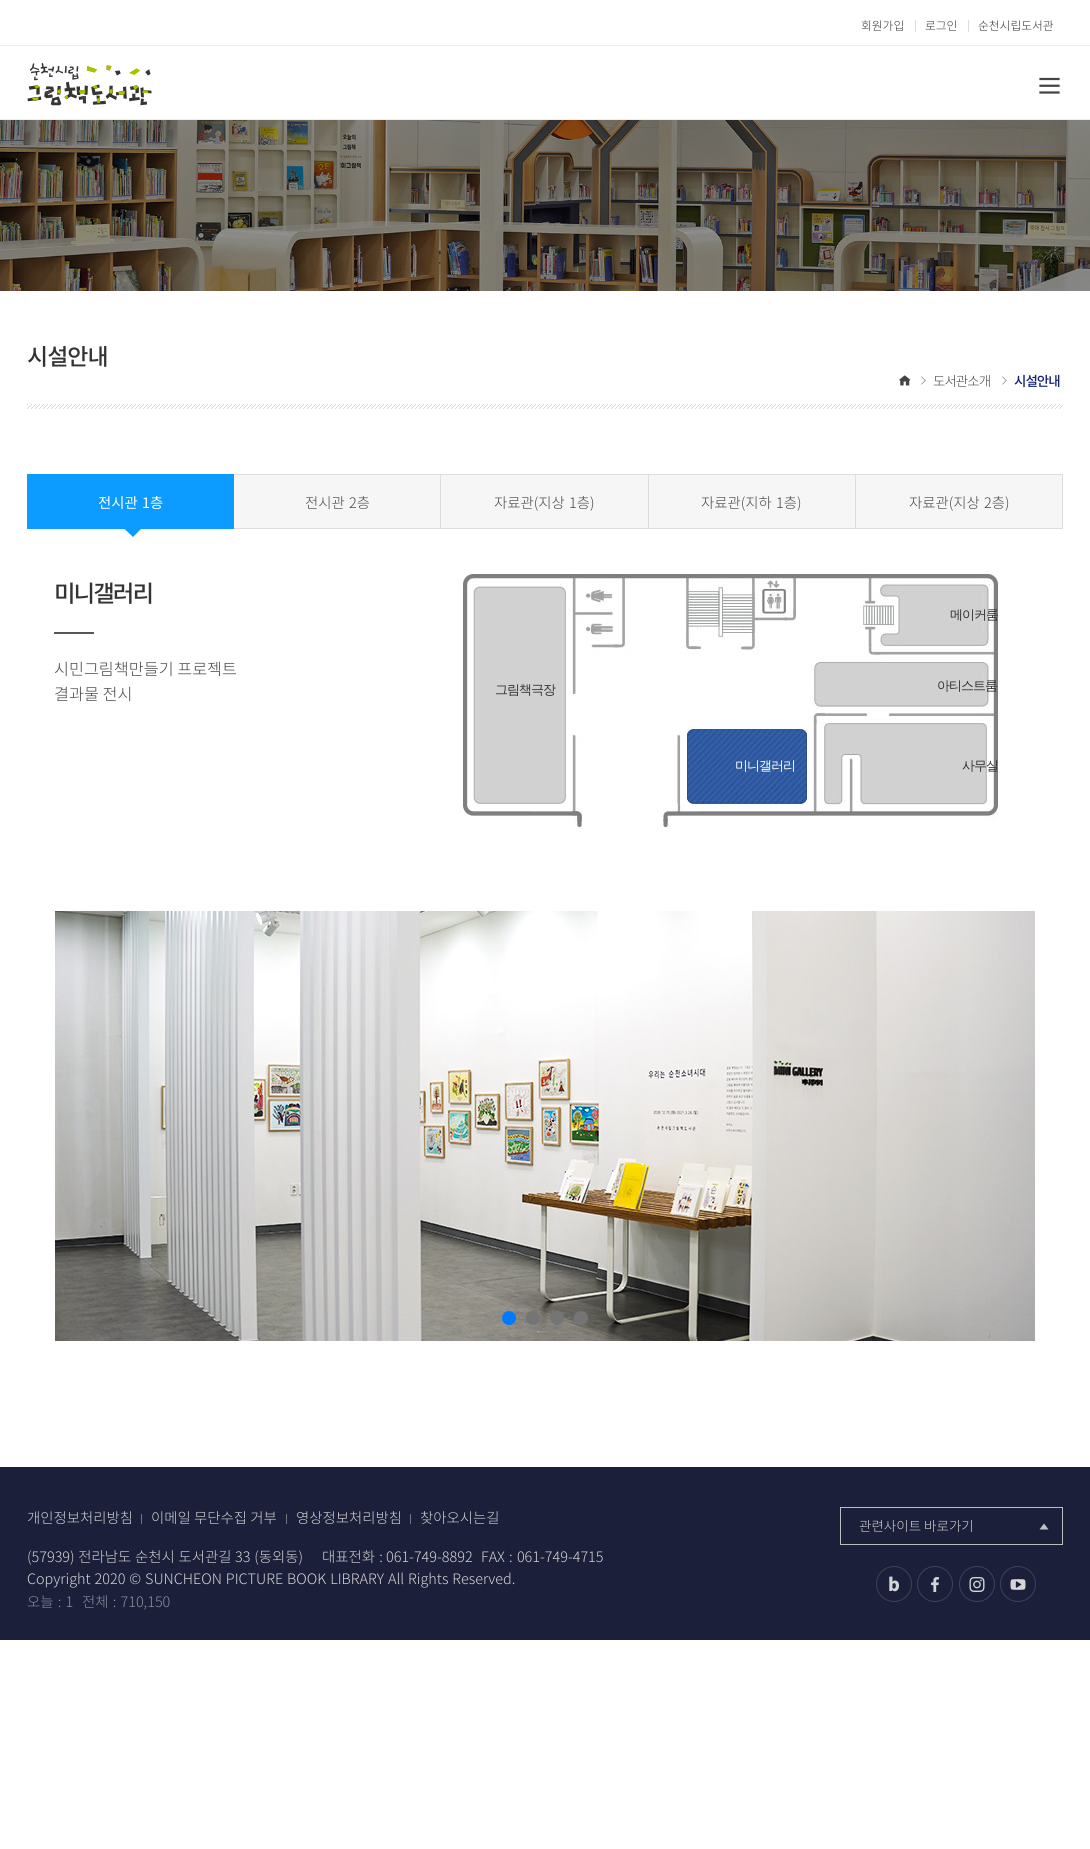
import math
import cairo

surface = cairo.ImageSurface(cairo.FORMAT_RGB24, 1090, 1849)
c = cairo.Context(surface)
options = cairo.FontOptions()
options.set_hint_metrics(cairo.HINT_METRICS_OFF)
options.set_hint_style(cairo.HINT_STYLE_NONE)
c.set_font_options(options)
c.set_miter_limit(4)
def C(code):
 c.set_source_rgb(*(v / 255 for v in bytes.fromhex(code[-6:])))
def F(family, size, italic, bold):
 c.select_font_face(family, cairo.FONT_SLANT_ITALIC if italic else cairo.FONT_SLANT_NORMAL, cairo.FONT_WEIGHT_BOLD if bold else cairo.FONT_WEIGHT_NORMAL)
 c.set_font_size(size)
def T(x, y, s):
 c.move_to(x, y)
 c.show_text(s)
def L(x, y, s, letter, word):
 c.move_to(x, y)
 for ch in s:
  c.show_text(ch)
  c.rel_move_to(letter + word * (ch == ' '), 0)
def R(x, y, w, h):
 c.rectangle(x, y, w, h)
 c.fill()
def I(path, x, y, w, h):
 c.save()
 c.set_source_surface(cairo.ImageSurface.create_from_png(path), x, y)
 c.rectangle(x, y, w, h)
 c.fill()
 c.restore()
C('ffffff')
c.paint()
C('eeeeee')
R(0,119,1090,1)
F('Noto Sans KR Light',11.75,0,0)
C('333333')
T(861,30,'회원가입')
C('dddddd')
R(915,20,1,12)
C('333333')
T(925,30,'로그인')
C('dddddd')
R(968,20,1,12)
C('333333')
T(978,30,'순천시립도서관')
I('1.png',27,63,125,43)
I('2.png',1039,77,21,17)
C('eeeeee')
R(0,45,1090,1)
I('3.png',0,120,1090,171)
F('Noto Sans KR Medium',23,0,0)
C('333333')
L(27,365,'시설안내',-1,0)
I('4.png',899,375,12,11)
I('5.png',921,376,5,9)
F('Noto Sans KR Light',13.5,0,0)
C('444444')
L(933,386,'도서관소개',-1,0)
I('5.png',1002,376,5,9)
F('Noto Sans KR Medium',13.5,0,0)
C('121d76')
L(1014,386,'시설안내',-1,0)
I('6.png',27,404,1036,5)
C('0c9cff')
R(27,474,207,55)
F('Noto Sans KR',14.4,0,0)
C('ffffff')
L(98,508,'전시관 1층',0,1)
C('0c9cff')
c.new_path()
c.move_to(133,517.5)
c.line_to(142.5,527.5)
c.line_to(133,537)
c.line_to(123,527.5)
c.close_path()
c.fill()
C('f6f6f6')
R(234,475,206,53)
C('dddddd')
R(234,474,829,1)
R(440,474,1,55)
R(234,528,207,1)
F('Noto Sans KR Light',14.4,0,0)
C('444444')
L(305,508,'전시관 2층',0,1)
C('f6f6f6')
R(441,475,207,53)
C('dddddd')
R(648,474,1,55)
R(441,528,208,1)
C('444444')
L(494,508,'자료관(지상 1층)',0,1)
C('f6f6f6')
R(649,475,206,53)
C('dddddd')
R(855,474,1,55)
R(649,528,207,1)
C('444444')
L(701,508,'자료관(지하 1층)',0,1)
C('f6f6f6')
R(856,475,206,53)
C('dddddd')
R(1062,474,1,55)
R(856,528,207,1)
C('444444')
L(909,508,'자료관(지상 2층)',0,1)
F('Noto Sans KR Medium',23.5,0,0)
C('333333')
L(54,602,'미니갤러리',-2,0)
C('565656')
R(54,632,40,2)
F('Noto Sans KR Light',16.25,0,0)
C('444444')
T(54,675,'시민그림책만들기 프로젝트')
T(54,700,'결과물 전시')
I('7.png',463,574,535,255)
F('WenQuanYi Zen Hei Medium',13,0,0)
C('333333')
L(950,619,'메이커룸',-1,0)
L(495,694,'그림책극장',-1,0)
L(937,690,'아티스트룸',-1,0)
C('ffffff')
L(735,770,'미니갤러리',-1,0)
C('333333')
L(962,770,'사무실',-1,0)
I('8.png',55,911,980,430)
C('007aff')
c.arc(509,1318,7,0,2 * math.pi)
c.fill()
C('757575')
c.arc(533,1318,7,0,2 * math.pi)
c.fill()
c.arc(557,1318,7,0,2 * math.pi)
c.fill()
c.arc(581,1318,7,0,2 * math.pi)
c.fill()
C('1c1f3a')
R(0,1467,1090,173)
F('Noto Sans KR Light',14.4,0,0)
C('d5d5d5')
T(27,1523,'개인정보처리방침')
C('747583')
R(141,1514,1,10)
C('d5d5d5')
T(151,1523,'이메일 무단수집 거부')
C('747583')
R(286,1514,1,10)
C('d5d5d5')
T(296,1523,'영상정보처리방침')
C('747583')
R(410,1514,1,10)
C('d5d5d5')
T(420,1523,'찾아오시는길')
c.new_path()
c.arc(894,1584,17.5,0,2 * math.pi)
C('3e4158')
c.set_line_width(1)
c.stroke()
F('Noto Sans KR Black',18,0,0)
C('d5d5d5')
T(888,1591,'b')
c.new_path()
c.arc(935,1584,17.5,0,2 * math.pi)
C('3e4158')
c.stroke()
I('9.png',931,1577,8,15)
c.arc(977,1584,17.5,0,2 * math.pi)
c.stroke()
I('10.png',969,1577,16,15)
c.arc(1018,1584,17.5,0,2 * math.pi)
c.stroke()
I('11.png',1010,1579,16,11)
c.rectangle(840.5,1507.5,222,37)
C('bebebe')
c.stroke()
F('Noto Sans KR Light',13.5,0,0)
C('d5d5d5')
T(859,1531,'관련사이트 바로가기')
C('bcc3c9')
c.new_path()
c.move_to(1048.5,1529.5)
c.line_to(1044,1523.5)
c.line_to(1039.5,1529.5)
c.close_path()
c.fill()
F('Noto Sans KR Light',14.4,0,0)
C('d5d5d5')
L(27,1562,'(57939) 전라남도 순천시 도서관길 33 (동외동)',0,.5)
L(322,1562,'대표전화 :',0,1)
T(386,1562,'061-749-8892')
L(481,1562,'FAX : 061-749-4715',0,1)
L(27,1584,'Copyright 2020 © SUNCHEON PICTURE BOOK LIBRARY All Rights Reserved.',0,.75)
C('8e8f9d')
L(27,1607,'오늘 : 1',0,1)
L(82,1607,'전체 : 710,150',0,1)
surface.write_to_png('o.png')
